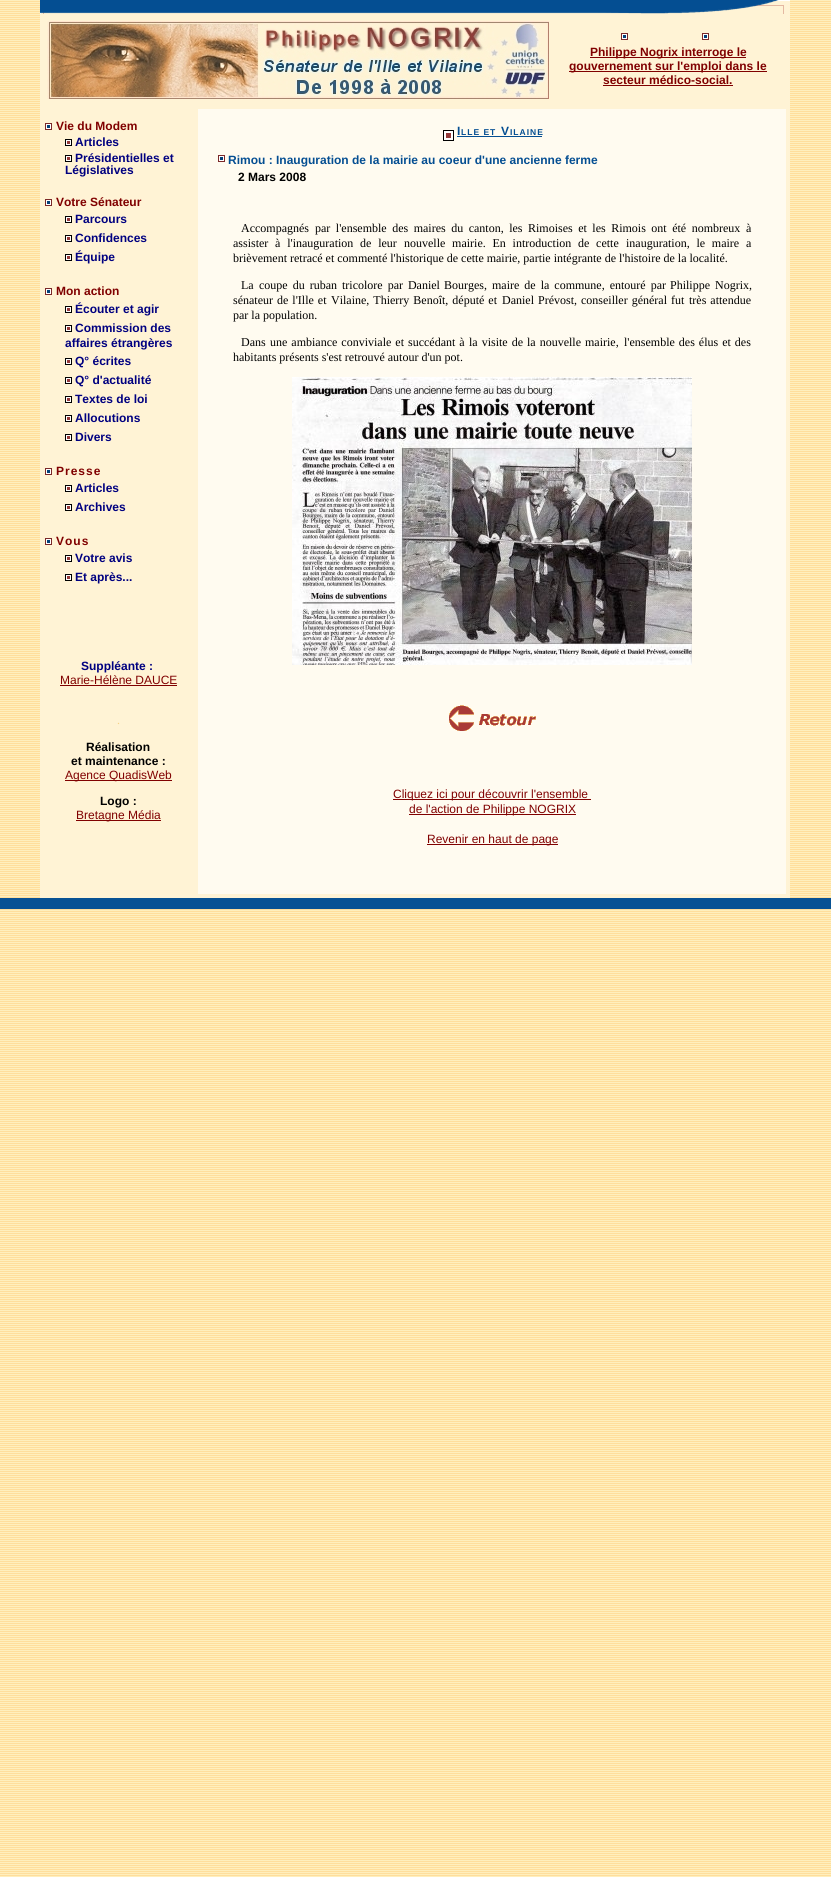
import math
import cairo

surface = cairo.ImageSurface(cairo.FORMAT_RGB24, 831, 1877)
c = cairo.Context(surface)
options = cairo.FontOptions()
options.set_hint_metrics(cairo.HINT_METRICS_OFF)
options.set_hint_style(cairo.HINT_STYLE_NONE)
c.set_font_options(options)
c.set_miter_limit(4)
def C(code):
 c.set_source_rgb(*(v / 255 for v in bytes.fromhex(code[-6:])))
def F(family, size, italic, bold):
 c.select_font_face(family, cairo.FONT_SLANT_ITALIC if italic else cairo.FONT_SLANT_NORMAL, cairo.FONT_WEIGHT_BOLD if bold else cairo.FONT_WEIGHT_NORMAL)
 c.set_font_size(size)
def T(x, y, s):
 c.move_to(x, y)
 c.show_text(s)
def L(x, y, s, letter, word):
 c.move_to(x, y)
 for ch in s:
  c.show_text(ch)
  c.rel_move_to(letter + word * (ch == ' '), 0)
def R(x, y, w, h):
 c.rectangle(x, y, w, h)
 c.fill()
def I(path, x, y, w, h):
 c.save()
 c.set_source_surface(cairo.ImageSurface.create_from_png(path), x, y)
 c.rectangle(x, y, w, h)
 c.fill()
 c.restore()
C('ffffff')
c.paint()
I('1.png',0,0,831,1877)
C('fff3d5')
R(40,14,750,884)
I('2.png',40,0,750,14)
I('3.png',47,21,502,78)
I('4.png',621,33,7,7)
I('4.png',702,33,7,7)
C('800000')
R(590,57,156,1)
F('Liberation Sans',12,0,1)
T(590,56,'Philippe Nogrix interroge le')
R(569,71,198,1)
T(569,70,'gouvernement sur l\'emploi dans le')
T(603,84,'secteur médico-social.')
R(603,85,130,1)
I('4.png',45,123,7,7)
T(56,130,'Vie du Modem')
I('5.png',65,139,7,7)
C('000080')
T(75,146,'Articles')
I('5.png',65,155,7,7)
T(75,162,'Présidentielles et')
T(65,174,'Législatives')
I('4.png',45,199,7,7)
C('800000')
T(56,206,'Votre Sénateur')
I('5.png',65,216,7,7)
C('000080')
T(75,223,'Parcours')
I('5.png',65,235,7,7)
T(75,242,'Confidences')
I('5.png',65,254,7,7)
T(75,261,'Équipe')
I('4.png',45,288,7,7)
C('800000')
T(56,295,'Mon action')
I('5.png',65,306,7,7)
C('000080')
T(75,313,'Écouter et agir')
I('5.png',65,325,7,7)
T(75,332,'Commission des')
T(65,347,'affaires étrangères')
I('5.png',65,358,7,7)
T(75,365,'Q° écrites')
I('5.png',65,377,7,7)
T(75,384,'Q° d\'actualité')
I('5.png',65,396,7,7)
T(75,403,'Textes de loi')
I('5.png',65,415,7,7)
T(75,422,'Allocutions')
I('5.png',65,434,7,7)
T(75,441,'Divers')
I('4.png',45,468,7,7)
C('800000')
L(56,475,'Presse',1,0)
I('5.png',65,485,7,7)
C('000080')
T(75,492,'Articles')
I('5.png',65,504,7,7)
T(75,511,'Archives')
I('4.png',45,538,7,7)
C('800000')
L(56,545,'Vous',1,0)
I('5.png',65,555,7,7)
C('000080')
T(75,562,'Votre avis')
I('5.png',65,574,7,7)
T(75,581,'Et après...')
T(81,670,'Suppléante :')
F('Liberation Sans',12,0,0)
C('800000')
T(60,684,'Marie-Hélène DAUCE')
R(60,685,117,1)
F('Liberation Serif',12,0,0)
C('f6d286')
T(117,724,'.')
F('Liberation Sans',12,0,1)
C('000000')
T(86,751,'Réalisation')
T(71,765,'et maintenance :')
C('800000')
R(65,780,107,1)
F('Liberation Sans',12,0,0)
T(65,779,'Agence QuadisWeb')
F('Liberation Sans',12,0,1)
C('000000')
T(100,805,'Logo :')
C('800000')
R(76,820,85,1)
F('Liberation Sans',12,0,0)
T(76,819,'Bretagne Média')
C('fffbf0')
R(198,109,588,785)
I('6.png',443,130,11,11)
F('Liberation Sans',12,0,1)
C('044e92')
L(457,135,'I',1,0)
F('Liberation Sans',8.5,0,1)
L(461,135,'LLE ET',1,0)
R(457,136,85,1)
F('Liberation Sans',12,0,1)
L(501,135,'V',1,0)
F('Liberation Sans',8.5,0,1)
L(510,135,'ILAINE',1,0)
I('4.png',218,155,7,7)
F('Liberation Sans',12,0,1)
T(228,164,'Rimou : Inauguration de la mairie au coeur d\'une ancienne ferme')
C('000000')
T(238,181,'2 Mars 2008')
F('Liberation Serif',12,0,0)
T(241,232,'Accompagnés')
L(315,232,'par l\'ensemble des maires du canton, les',0,2.5)
L(528,232,'Rimoises et les Rimois ont été nombreux',0,2.5)
T(746,232,'à')
L(233,247,'assister à l\'inauguration de leur',0,3.75)
L(404,247,'nouvelle mairie. En introduction de cette',0,3.75)
L(626,247,'inauguration, le maire a',0,3.75)
T(233,262,'brièvement retracé et commenté l\'historique de cette mairie, partie intégrante de l\'histoire de la localité.')
T(241,289,'La')
L(259,289,'coupe du ruban tricolore par Daniel',0,2)
L(444,289,'Bourges, maire de la commune, entouré par',0,2)
L(670,289,'Philippe Nogrix,',0,2)
L(233,304,'sénateur de l\'Ille et',0,1)
L(331,304,'Vilaine, Thierry Benoît, député et',0,1)
L(502,304,'Daniel Prévost, conseiller général fut',0,1)
L(689,304,'très attendue',0,1)
T(233,319,'par la population.')
T(241,346,'Dans')
L(270,346,'une ambiance conviviale et succédant à',0,1)
L(469,346,'la visite de la nouvelle mairie,',0,1)
L(624,346,'l\'ensemble des élus et des',0,1)
T(233,361,'habitants présents s\'est retrouvé autour d\'un pot.')
I('7.png',292,377,400,288)
I('8.png',449,705,87,26)
C('800000')
R(393,799,198,1)
F('Liberation Sans',12,0,0)
T(393,798,'Cliquez ici pour découvrir l\'ensemble')
R(409,814,167,1)
T(409,813,'de l\'action de Philippe NOGRIX')
R(427,844,131,1)
T(427,843,'Revenir en haut de page')
C('085294')
R(0,898,831,11)
surface.write_to_png('o.png')
